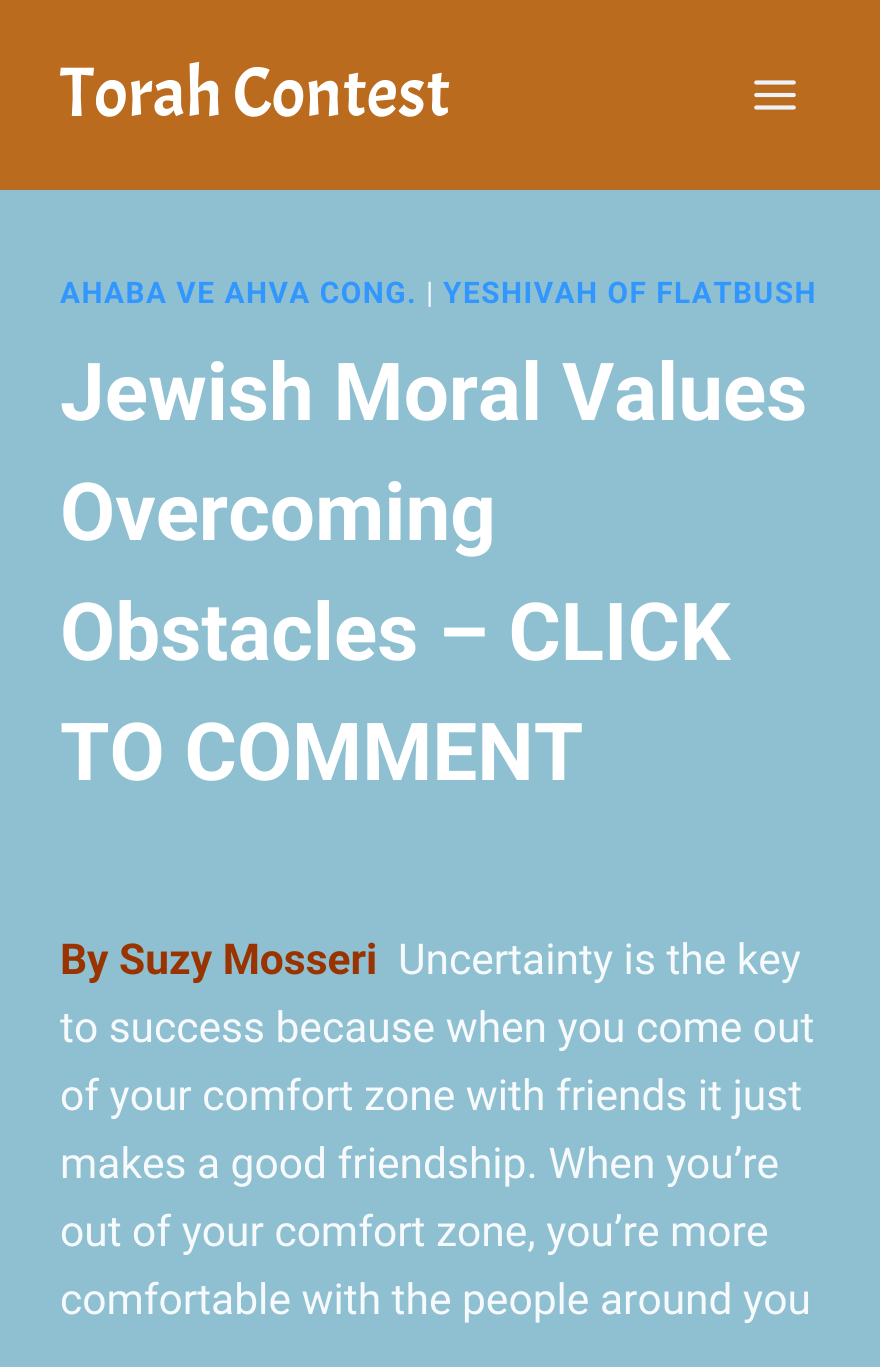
import math
import cairo

surface = cairo.ImageSurface(cairo.FORMAT_RGB24, 880, 1367)
c = cairo.Context(surface)
options = cairo.FontOptions()
options.set_hint_metrics(cairo.HINT_METRICS_OFF)
options.set_hint_style(cairo.HINT_STYLE_NONE)
c.set_font_options(options)
c.set_miter_limit(4)
def C(code):
 c.set_source_rgb(*(v / 255 for v in bytes.fromhex(code[-6:])))
def F(family, size, italic, bold):
 c.select_font_face(family, cairo.FONT_SLANT_ITALIC if italic else cairo.FONT_SLANT_NORMAL, cairo.FONT_WEIGHT_BOLD if bold else cairo.FONT_WEIGHT_NORMAL)
 c.set_font_size(size)
def T(x, y, s):
 c.move_to(x, y)
 c.show_text(s)
def L(x, y, s, letter, word):
 c.move_to(x, y)
 for ch in s:
  c.show_text(ch)
  c.rel_move_to(letter + word * (ch == ' '), 0)
def R(x, y, w, h):
 c.rectangle(x, y, w, h)
 c.fill()
def I(path, x, y, w, h):
 c.save()
 c.set_source_surface(cairo.ImageSurface.create_from_png(path), x, y)
 c.rectangle(x, y, w, h)
 c.fill()
 c.restore()
C('8ec0d1')
c.paint()
C('bb6b1e')
R(0,0,880,190)
F('Acme',70,0,0)
C('ffffff')
T(60,116,'Torah Contest')
I('1.png',754,80,42,30)
F('Roboto',29.75,0,1)
C('3296ff')
L(60,303,'AHABA VE AHVA CONG.',1.5,0)
F('Roboto',29.75,0,0)
C('f7fafc')
L(426,303,'|',1.5,0)
F('Roboto',29.75,0,1)
C('3296ff')
L(443,303,'YESHIVAH OF FLATBUSH',1.5,0)
F('Roboto',80,0,1)
C('ffffff')
T(60,420,'Jewish Moral Values')
T(60,540,'Overcoming')
T(60,660,'Obstacles – CLICK')
T(60,780,'TO COMMENT')
F('Roboto',42.5,0,1)
C('993300')
T(60,974,'By Suzy Mosseri')
F('Roboto',42.5,0,0)
C('f7fafc')
T(398,974,'Uncertainty is the key')
T(60,1042,'to success because when you come out')
T(60,1110,'of your comfort zone with friends it just')
T(60,1178,'makes a good friendship. When you’re')
T(60,1246,'out of your comfort zone, you’re more')
T(60,1314,'comfortable with the people around you')
surface.write_to_png('o.png')
